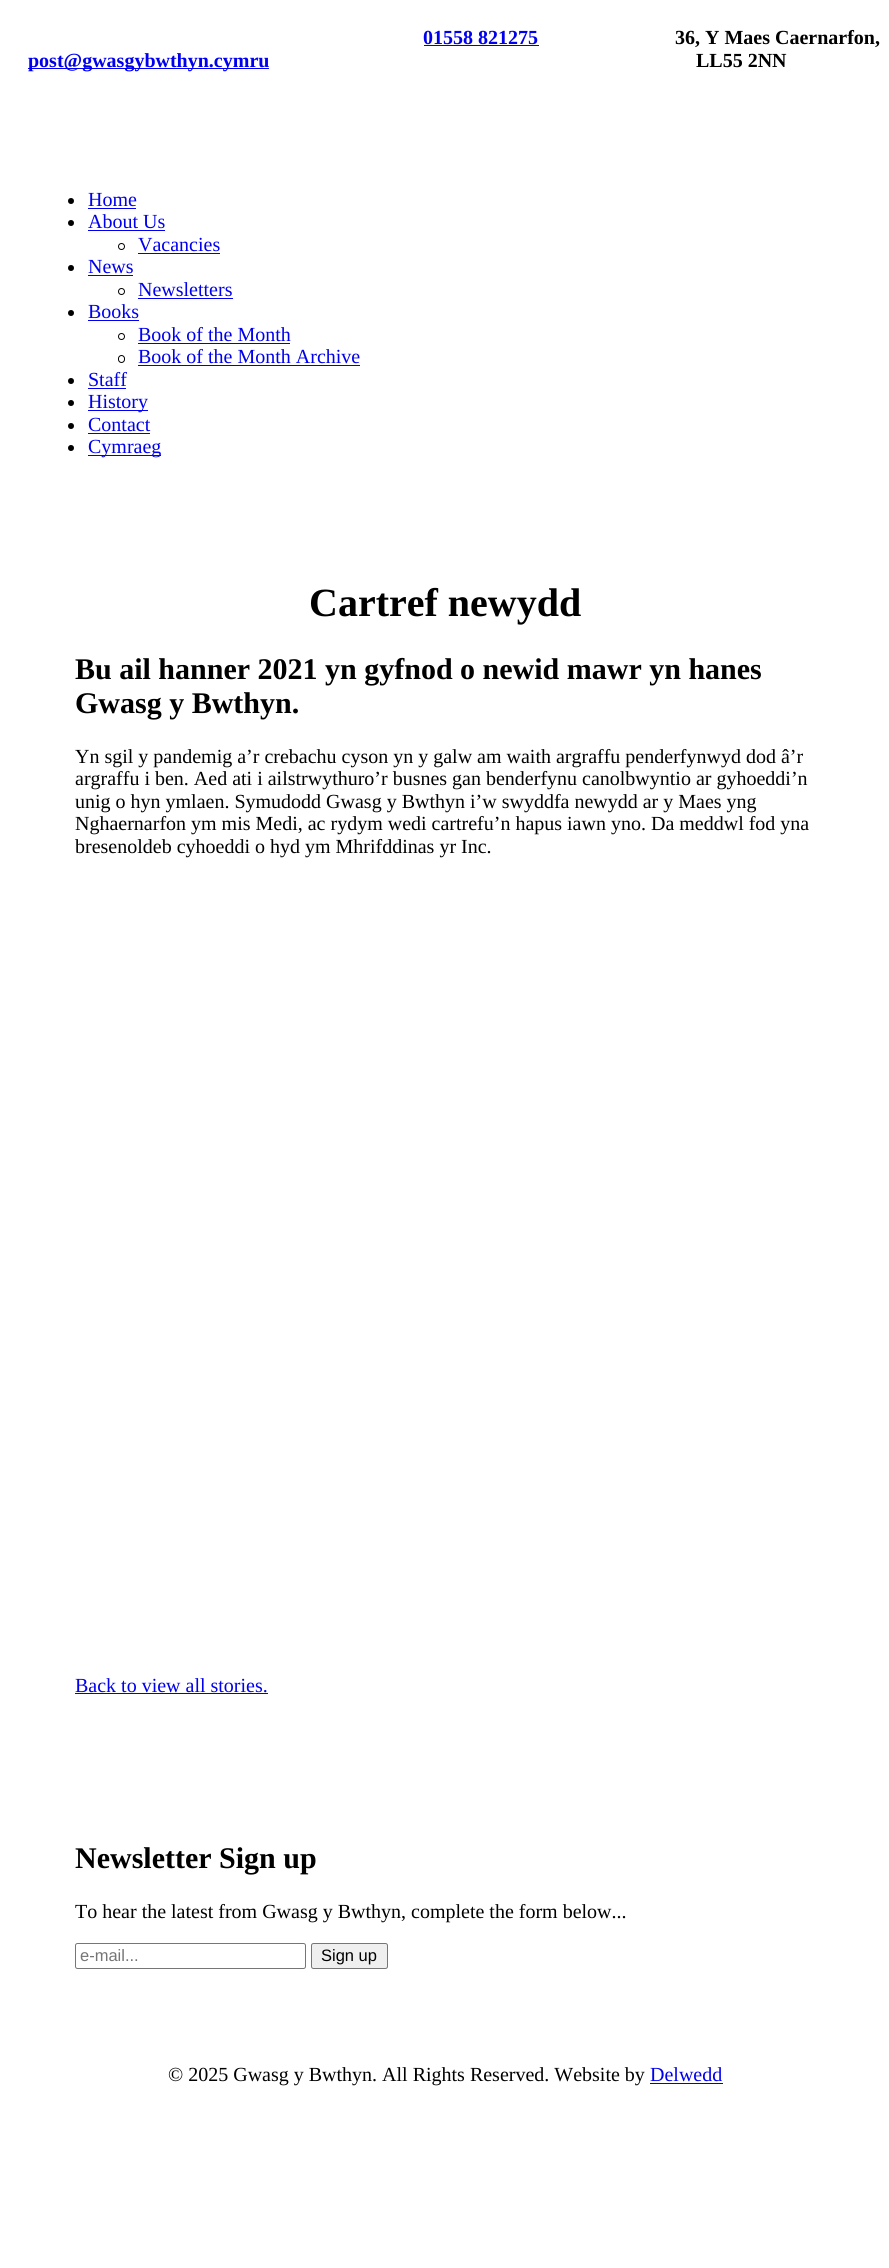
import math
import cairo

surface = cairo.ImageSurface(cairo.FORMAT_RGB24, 889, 2268)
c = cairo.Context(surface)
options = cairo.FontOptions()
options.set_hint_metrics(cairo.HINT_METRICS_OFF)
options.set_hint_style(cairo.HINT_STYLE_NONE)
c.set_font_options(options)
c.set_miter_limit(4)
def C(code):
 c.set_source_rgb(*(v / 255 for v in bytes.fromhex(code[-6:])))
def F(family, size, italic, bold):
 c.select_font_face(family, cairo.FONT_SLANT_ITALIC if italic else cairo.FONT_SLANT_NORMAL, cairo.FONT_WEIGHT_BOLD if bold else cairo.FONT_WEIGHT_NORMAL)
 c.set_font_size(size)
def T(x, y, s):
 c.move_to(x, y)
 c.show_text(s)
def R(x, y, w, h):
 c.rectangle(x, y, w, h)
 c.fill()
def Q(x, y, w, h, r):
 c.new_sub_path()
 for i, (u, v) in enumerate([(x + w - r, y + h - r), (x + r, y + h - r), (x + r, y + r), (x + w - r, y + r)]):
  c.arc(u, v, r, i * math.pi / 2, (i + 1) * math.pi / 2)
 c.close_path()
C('ffffff')
c.paint()
F('Liberation Serif',20,0,1)
C('0000ee')
T(423,44,'01558 821275')
R(424,45,115,1)
C('000000')
T(675,44,'36, Y Maes Caernarfon,')
T(696,67,'LL55 2NN')
C('0000ee')
R(28,68,241,1)
T(28,67,'post@gwasgybwthyn.cymru')
C('000000')
c.new_path()
c.arc(71,201,3,0,2 * math.pi)
c.fill()
F('Liberation Serif',20,0,0)
C('0000ee')
T(88,206,'Home')
R(88,208,48,1)
C('000000')
c.new_path()
c.arc(71,223,3,0,2 * math.pi)
c.fill()
C('0000ee')
T(88,228,'About Us')
R(88,230,77,1)
c.new_path()
c.arc(121.5,246.5,3,0,2 * math.pi)
C('000000')
c.set_line_width(1)
c.stroke()
C('0000ee')
T(138,251,'Vacancies')
R(138,253,82,1)
C('000000')
c.new_path()
c.arc(71,268,3,0,2 * math.pi)
c.fill()
C('0000ee')
T(88,273,'News')
R(88,275,45,1)
c.new_path()
c.arc(121.5,291.5,3,0,2 * math.pi)
C('000000')
c.stroke()
C('0000ee')
T(138,296,'Newsletters')
R(138,298,95,1)
C('000000')
c.new_path()
c.arc(71,313,3,0,2 * math.pi)
c.fill()
C('0000ee')
T(88,318,'Books')
R(88,320,51,1)
c.new_path()
c.arc(121.5,336.5,3,0,2 * math.pi)
C('000000')
c.stroke()
C('0000ee')
T(138,341,'Book of the Month')
R(138,343,152,1)
Q(118.5,355.5,6,7,3)
C('000000')
c.stroke()
C('0000ee')
T(138,363,'Book of the Month Archive')
R(138,365,222,1)
C('000000')
c.new_path()
c.arc(71,381,3,0,2 * math.pi)
c.fill()
C('0000ee')
T(88,386,'Staff')
R(88,388,38,1)
C('000000')
c.new_path()
c.arc(71,403,3,0,2 * math.pi)
c.fill()
C('0000ee')
R(88,410,60,1)
T(88,408,'History')
C('000000')
c.new_path()
c.arc(71,426,3,0,2 * math.pi)
c.fill()
C('0000ee')
T(88,431,'Contact')
R(88,433,62,1)
C('000000')
c.new_path()
c.arc(71,448,3,0,2 * math.pi)
c.fill()
C('0000ee')
R(88,455,73,1)
T(88,453,'Cymraeg')
F('Liberation Serif',40,0,1)
C('000000')
T(309,616,'Cartref newydd')
F('Liberation Serif',30,0,1)
T(75,679,'Bu ail hanner 2021 yn gyfnod o newid mawr yn hanes')
T(75,713,'Gwasg y Bwthyn.')
F('Liberation Serif',20,0,0)
T(75,763,'Yn sgil y pandemig a’r crebachu cyson yn y galw am waith argraffu penderfynwyd dod â’r')
T(75,785,'argraffu i ben. Aed ati i ailstrwythuro’r busnes gan benderfynu canolbwyntio ar gyhoeddi’n')
T(75,808,'unig o hyn ymlaen. Symudodd Gwasg y Bwthyn i’w swyddfa newydd ar y Maes yng')
T(75,830,'Nghaernarfon ym mis Medi, ac rydym wedi cartrefu’n hapus iawn yno. Da meddwl fod yna')
T(75,853,'bresenoldeb cyhoeddi o hyd ym Mhrifddinas yr Inc.')
C('0000ee')
T(75,1692,'Back to view all stories.')
R(75,1693,193,1)
F('Liberation Serif',30,0,1)
C('000000')
T(75,1868,'Newsletter Sign up')
F('Liberation Serif',20,0,0)
T(75,1918,'To hear the latest from Gwasg y Bwthyn, complete the form below...')
Q(75.5,1943.5,230,25,2)
C('767676')
c.stroke()
F('Liberation Sans',16.5,0,0)
C('757575')
T(80,1961,'e-mail...')
C('efefef')
Q(311.5,1943.5,76,25,2)
c.fill_preserve()
C('767676')
c.stroke()
C('000000')
T(321,1961,'Sign up')
F('Liberation Serif',20,0,0)
T(168,2081,'© 2025 Gwasg y Bwthyn. All Rights Reserved. Website by')
C('0000ee')
T(650,2081,'Delwedd')
R(650,2083,73,1)
surface.write_to_png('o.png')
